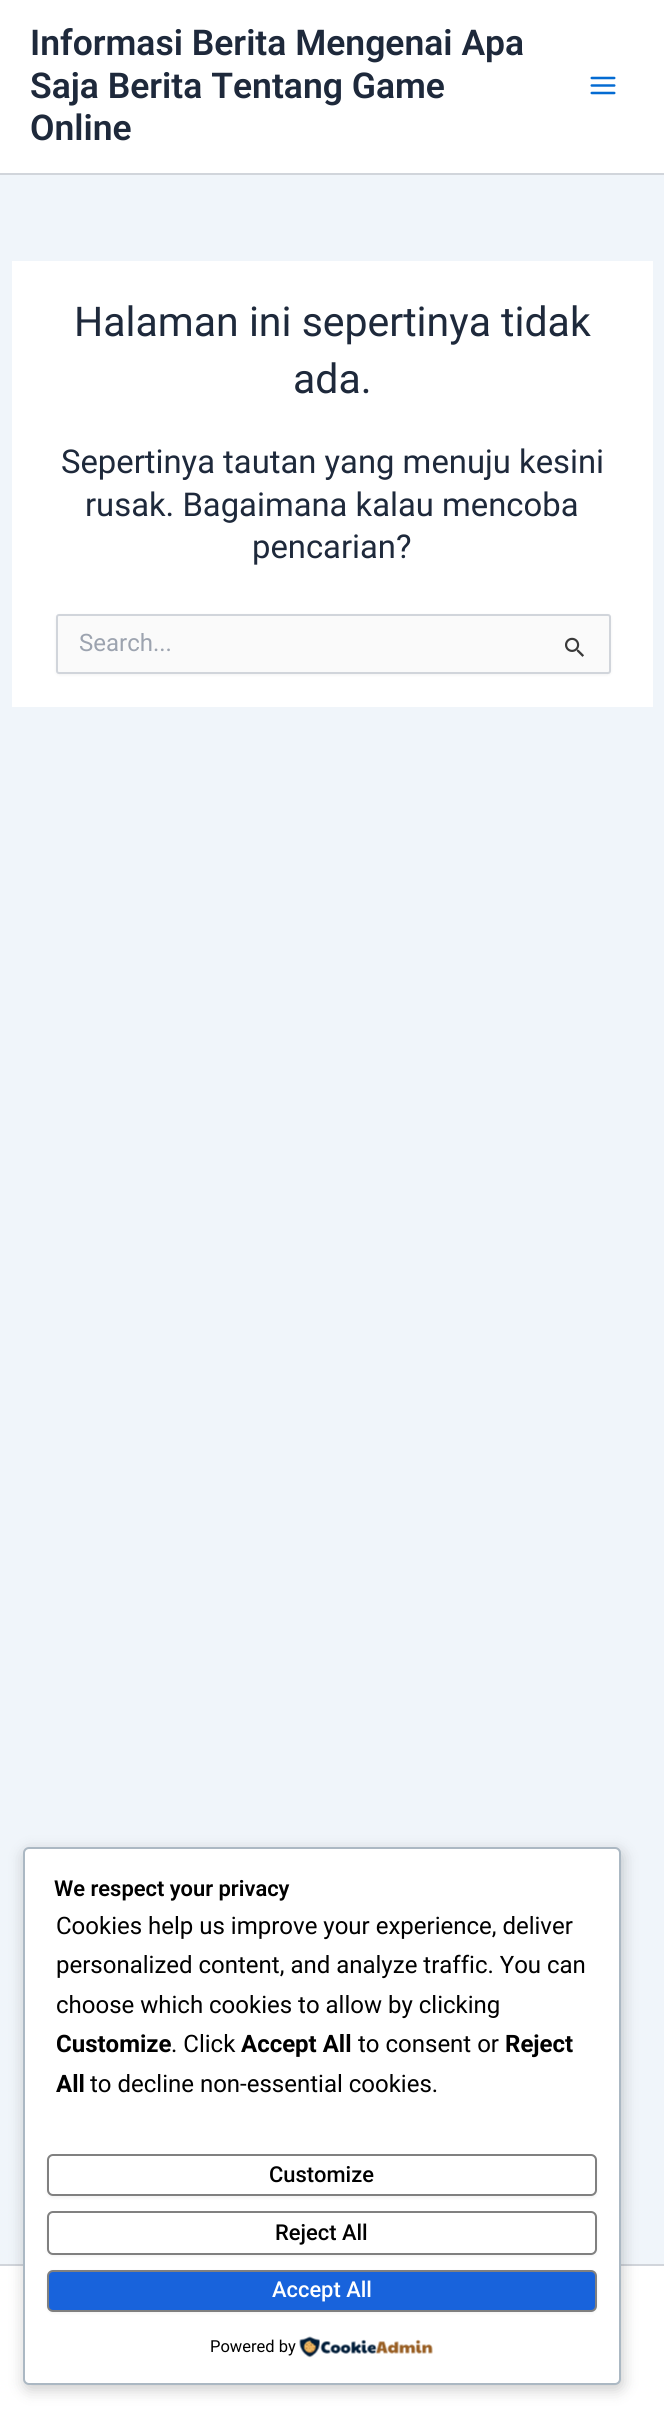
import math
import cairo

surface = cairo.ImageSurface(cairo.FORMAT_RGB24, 664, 2415)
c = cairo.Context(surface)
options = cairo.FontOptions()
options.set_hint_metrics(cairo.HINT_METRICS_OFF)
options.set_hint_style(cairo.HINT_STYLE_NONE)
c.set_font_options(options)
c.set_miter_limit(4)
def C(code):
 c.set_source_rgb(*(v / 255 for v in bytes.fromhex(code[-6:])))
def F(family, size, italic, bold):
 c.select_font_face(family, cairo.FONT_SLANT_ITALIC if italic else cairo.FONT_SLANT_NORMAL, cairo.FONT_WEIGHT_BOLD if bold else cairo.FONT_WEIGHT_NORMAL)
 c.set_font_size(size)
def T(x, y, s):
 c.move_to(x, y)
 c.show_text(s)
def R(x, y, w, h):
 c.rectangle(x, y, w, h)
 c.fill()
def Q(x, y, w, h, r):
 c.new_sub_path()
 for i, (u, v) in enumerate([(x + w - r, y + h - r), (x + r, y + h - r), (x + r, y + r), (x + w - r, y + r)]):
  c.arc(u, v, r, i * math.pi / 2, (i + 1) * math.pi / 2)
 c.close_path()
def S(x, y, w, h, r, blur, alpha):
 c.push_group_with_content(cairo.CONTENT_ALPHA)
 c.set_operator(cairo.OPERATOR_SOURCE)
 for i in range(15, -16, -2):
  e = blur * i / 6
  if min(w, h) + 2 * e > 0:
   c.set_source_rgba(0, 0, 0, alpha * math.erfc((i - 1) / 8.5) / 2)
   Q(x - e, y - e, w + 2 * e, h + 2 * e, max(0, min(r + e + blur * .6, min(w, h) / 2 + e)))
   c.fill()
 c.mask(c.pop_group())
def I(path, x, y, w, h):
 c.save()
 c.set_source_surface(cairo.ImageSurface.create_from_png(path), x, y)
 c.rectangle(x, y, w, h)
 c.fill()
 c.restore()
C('f0f5fa')
c.paint()
C('ffffff')
R(0,0,664,173)
C('d1d5db')
R(0,173,664,2)
F('Roboto SemiBold',35.5,0,0)
C('1e293b')
T(30,55,'Informasi Berita Mengenai Apa')
T(30,98,'Saja Berita Tentang Game')
T(30,140,'Online')
I('1.png',590,76,26,19)
C('ffffff')
R(12,261,641,446)
F('Roboto',41,0,0)
C('1e293b')
T(74,336,'Halaman ini sepertinya tidak')
T(293,393,'ada.')
F('Roboto',32.8,0,0)
T(61,473,'Sepertinya tautan yang menuju kesini')
T(85,516,'rusak. Bagaimana kalau mencoba')
T(252,558,'pencarian?')
C('000000')
S(56,615,555,60,3,1.5,.05)
C('fafafa')
Q(57,615,553,58,2)
c.fill_preserve()
C('d1d5db')
c.stroke()
F('Roboto',24,0,0)
C('9ca3af')
T(79,651,'Search...')
I('2.png',565,637,19,20)
C('ffffff')
R(0,2266,664,149)
C('d1d5db')
R(0,2264,664,2)
C('000000')
S(24,1851,599,539,6,7.5,.2)
C('ffffff')
Q(24,1848,596,536,5)
c.fill_preserve()
C('abb8c3')
c.stroke()
F('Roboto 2 SemiBold',21.9,0,0)
C('000000')
T(54,1896,'We respect your privacy')
F('Roboto',24,0,0)
T(56,1934,'Cookies help us improve your experience, deliver')
T(56,1973,'personalized content, and analyze traffic. You can')
T(56,2013,'choose which cookies to allow by clicking')
F('Roboto',24,0,1)
T(56,2052,'Customize')
F('Roboto',24,0,0)
T(171,2052,'. Click')
F('Roboto',24,0,1)
T(241,2052,'Accept All')
F('Roboto',24,0,0)
T(358,2052,'to consent or')
F('Roboto',24,0,1)
T(505,2052,'Reject')
T(56,2092,'All')
F('Roboto',24,0,0)
T(90,2092,'to decline non-essential cookies.')
C('000000')
S(47,2156,550,42,6,1.5,.05)
C('ffffff')
Q(48,2155,548,40,5)
c.fill_preserve()
C('808080')
c.stroke()
F('Roboto Medium',21.9,0,0)
C('000000')
T(269,2182,'Customize')
C('000000')
S(47,2213,550,43,6,1.5,.05)
C('ffffff')
Q(48,2212,548,42,5)
c.fill_preserve()
C('808080')
c.stroke()
C('000000')
T(275,2240,'Reject All')
C('000000')
S(47,2271,550,42,6,1.5,.05)
C('1863dc')
Q(48,2271,548,40,5)
c.fill_preserve()
C('808080')
c.stroke()
C('ffffff')
T(272,2297,'Accept All')
F('Roboto',16.5,0,0)
C('000000')
T(210,2352,'Powered by')
I('3.png',299,2336,134,22)
surface.write_to_png('o.png')
